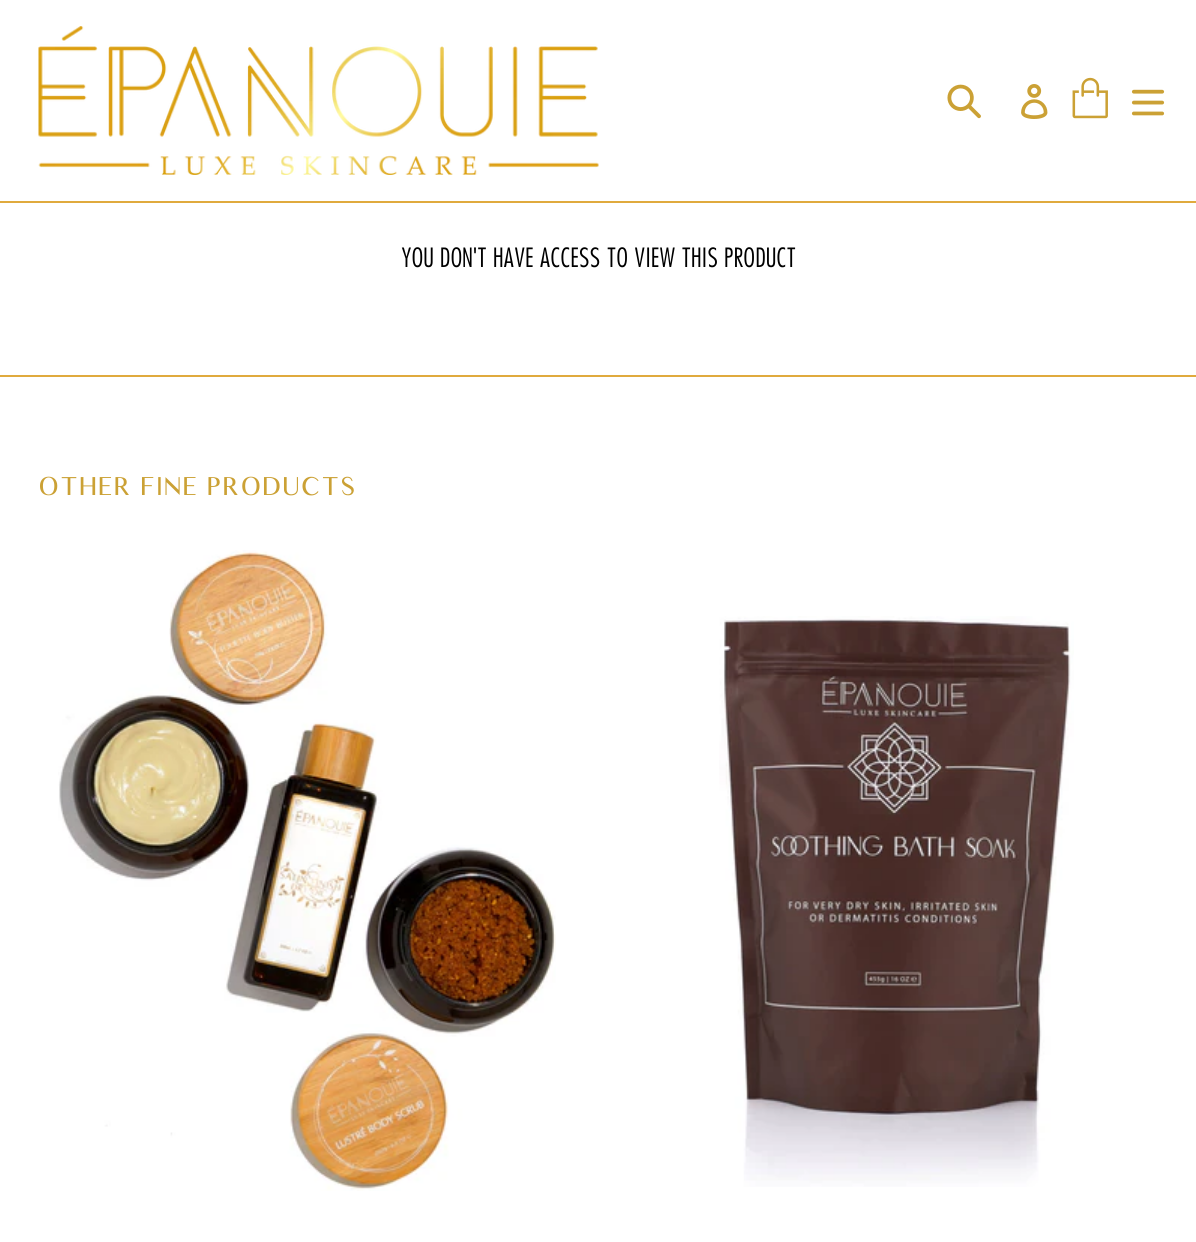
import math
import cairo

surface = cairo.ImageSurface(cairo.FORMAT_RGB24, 1196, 1242)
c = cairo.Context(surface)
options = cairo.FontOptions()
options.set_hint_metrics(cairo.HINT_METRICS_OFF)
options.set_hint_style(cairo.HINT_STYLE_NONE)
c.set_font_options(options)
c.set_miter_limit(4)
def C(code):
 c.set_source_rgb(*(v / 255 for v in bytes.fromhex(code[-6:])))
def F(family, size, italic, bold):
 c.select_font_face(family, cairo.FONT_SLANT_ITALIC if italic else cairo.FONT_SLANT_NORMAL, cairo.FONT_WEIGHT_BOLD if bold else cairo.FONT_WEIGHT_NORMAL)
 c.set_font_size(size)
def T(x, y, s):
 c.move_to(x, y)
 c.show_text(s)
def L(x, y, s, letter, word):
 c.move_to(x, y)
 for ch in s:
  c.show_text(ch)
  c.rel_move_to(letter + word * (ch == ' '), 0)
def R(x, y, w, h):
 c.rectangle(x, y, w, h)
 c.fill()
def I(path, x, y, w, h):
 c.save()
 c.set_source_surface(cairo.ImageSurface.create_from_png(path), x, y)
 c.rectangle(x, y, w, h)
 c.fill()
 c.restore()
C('ffffff')
c.paint()
C('e0aa3e')
R(0,201,1196,2)
I('1.png',38,26,561,149)
I('2.png',947,84,34,35)
I('3.png',1021,84,27,35)
I('4.png',1072,77,36,42)
I('5.png',1131,89,34,27)
F('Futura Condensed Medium',24.5,0,0)
C('000000')
T(401,267,'YOU DON\'T HAVE ACCESS TO VIEW THIS PRODUCT')
C('e0aa3e')
R(0,375,1196,2)
F('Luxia',24.5,0,0)
C('cba135')
L(39,495,'OTHER FINE PRODUCTS',2.5,0)
I('6.png',58,550,498,641)
I('7.png',719,616,355,571)
surface.write_to_png('o.png')
